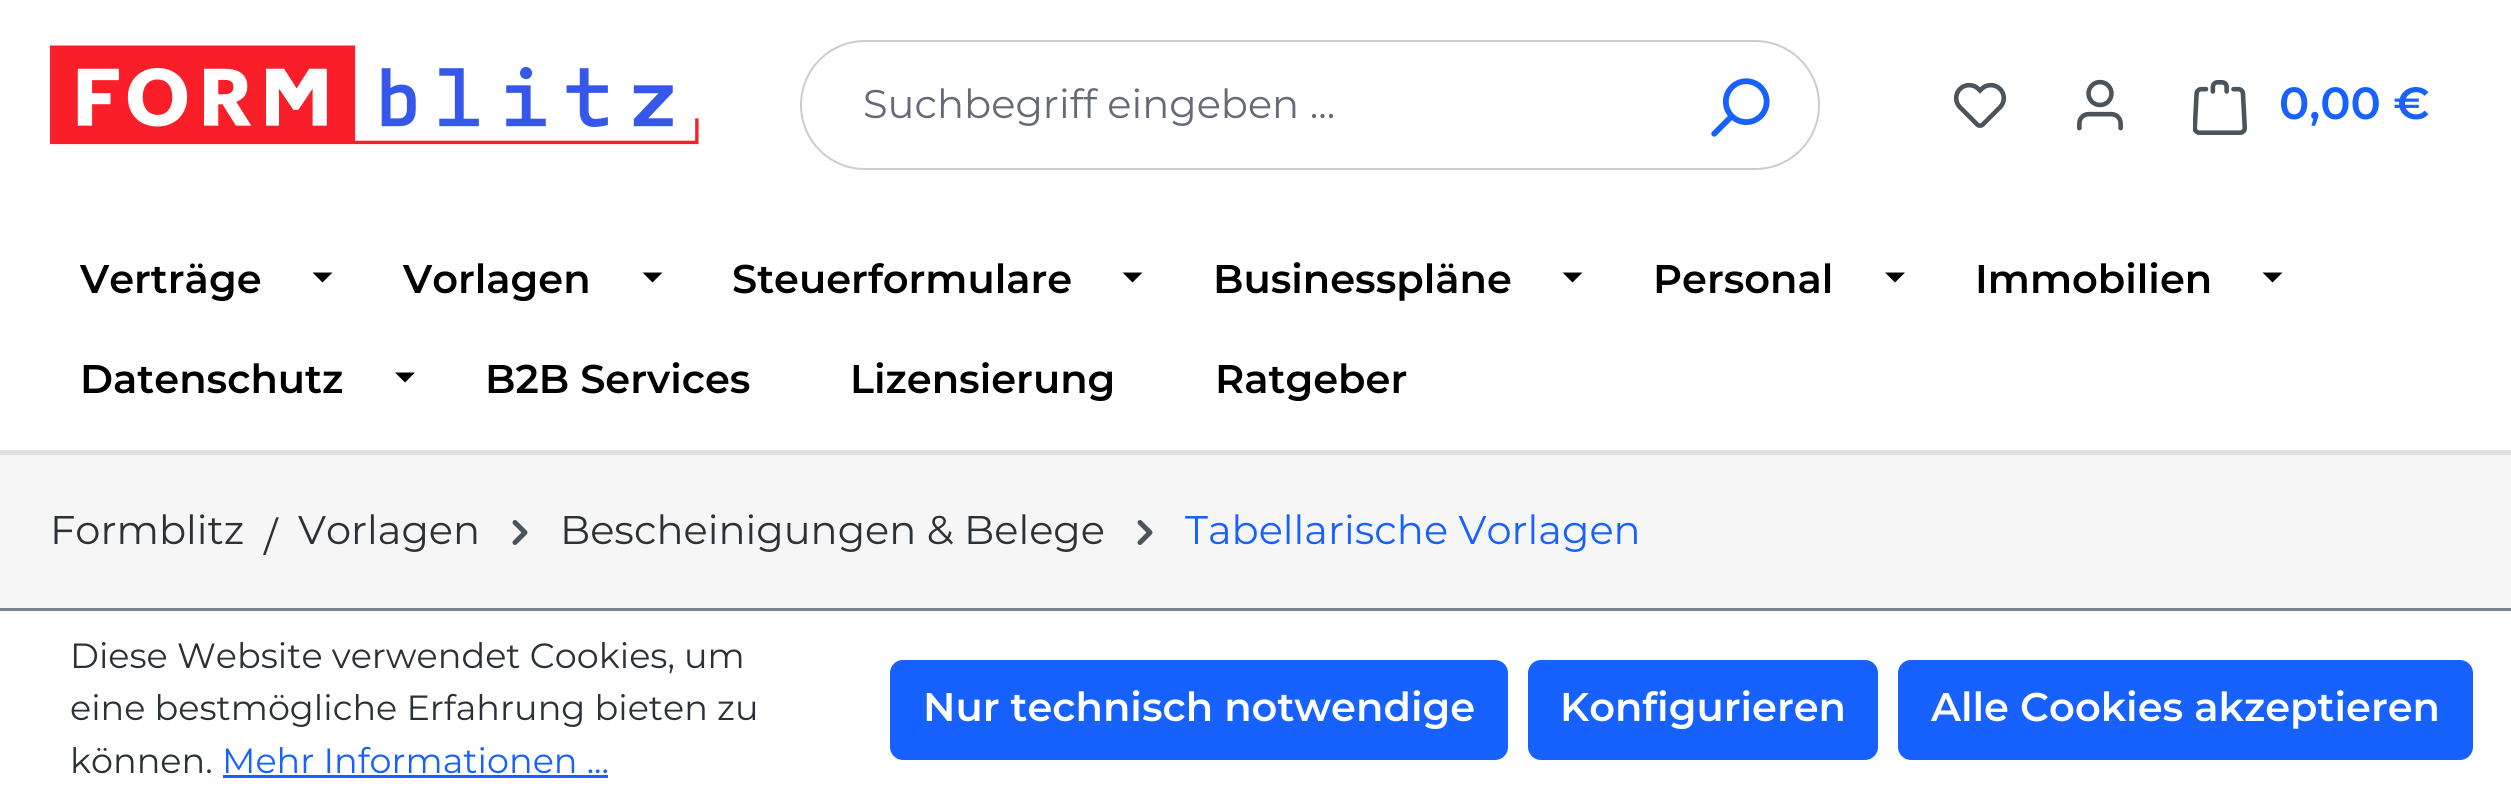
import math
import cairo

surface = cairo.ImageSurface(cairo.FORMAT_RGB24, 2511, 806)
c = cairo.Context(surface)
options = cairo.FontOptions()
options.set_hint_metrics(cairo.HINT_METRICS_OFF)
options.set_hint_style(cairo.HINT_STYLE_NONE)
c.set_font_options(options)
c.set_miter_limit(4)
def C(code):
 c.set_source_rgb(*(v / 255 for v in bytes.fromhex(code[-6:])))
def F(family, size, italic, bold):
 c.select_font_face(family, cairo.FONT_SLANT_ITALIC if italic else cairo.FONT_SLANT_NORMAL, cairo.FONT_WEIGHT_BOLD if bold else cairo.FONT_WEIGHT_NORMAL)
 c.set_font_size(size)
def T(x, y, s):
 c.move_to(x, y)
 c.show_text(s)
def R(x, y, w, h):
 c.rectangle(x, y, w, h)
 c.fill()
def Q(x, y, w, h, r):
 c.new_sub_path()
 for i, (u, v) in enumerate([(x + w - r, y + h - r), (x + r, y + h - r), (x + r, y + r), (x + w - r, y + r)]):
  c.arc(u, v, r, i * math.pi / 2, (i + 1) * math.pi / 2)
 c.close_path()
def I(path, x, y, w, h):
 c.save()
 c.set_source_surface(cairo.ImageSurface.create_from_png(path), x, y)
 c.rectangle(x, y, w, h)
 c.fill()
 c.restore()
C('ffffff')
c.paint()
I('1.png',50,45,649,100)
C('cccccc')
c.set_fill_rule(cairo.FILL_RULE_EVEN_ODD)
c.new_path()
c.move_to(865,40)
c.line_to(1670,40)
c.line_to(1670,170)
c.line_to(865,170)
c.curve_to(829,170,800,141,800,105)
c.curve_to(800,69,829,40,865,40)
c.close_path()
c.move_to(865,42)
c.line_to(1670,42)
c.line_to(1670,168)
c.line_to(865,168)
c.curve_to(830,168,802,140,802,105)
c.curve_to(802,70,830,42,865,42)
c.close_path()
c.fill()
F('Montserrat',40,0,0)
C('666977')
T(863,118,'Suchbegriff eingeben ...')
C('cccccc')
c.new_path()
c.move_to(1668,40)
c.line_to(1755,40)
c.curve_to(1791,40,1820,69,1820,105)
c.curve_to(1820,141,1791,170,1755,170)
c.line_to(1668,170)
c.close_path()
c.move_to(1668,42)
c.line_to(1755,42)
c.curve_to(1790,42,1818,70,1818,105)
c.curve_to(1818,140,1790,168,1755,168)
c.line_to(1668,168)
c.close_path()
c.fill()
I('2.png',1711,78,59,59)
I('3.png',1953,82,54,46)
I('4.png',2077,79,46,52)
I('5.png',2193,80,55,55)
F('Montserrat SemiBold',45,0,0)
C('1761ff')
T(2279,119,'0,00 €')
C('e1e1e1')
R(0,450,2511,5)
F('Montserrat SemiBold',40,0,0)
C('000000')
T(80,293,'Verträge')
c.set_fill_rule(cairo.FILL_RULE_WINDING)
c.new_path()
c.move_to(312.5,272.5)
c.line_to(332.5,272.5)
c.line_to(322.5,282.5)
c.close_path()
c.fill()
T(403,293,'Vorlagen')
c.new_path()
c.move_to(642.5,272.5)
c.line_to(662.5,272.5)
c.line_to(652.5,282.5)
c.close_path()
c.fill()
T(732,293,'Steuerformulare')
c.new_path()
c.move_to(1122.5,272.5)
c.line_to(1142.5,272.5)
c.line_to(1132.5,282.5)
c.close_path()
c.fill()
T(1213,293,'Businesspläne')
c.new_path()
c.move_to(1562.5,272.5)
c.line_to(1582.5,272.5)
c.line_to(1572.5,282.5)
c.close_path()
c.fill()
T(1653,293,'Personal')
c.new_path()
c.move_to(1885,272.5)
c.line_to(1905,272.5)
c.line_to(1895,282.5)
c.close_path()
c.fill()
T(1975,293,'Immobilien')
c.new_path()
c.move_to(2262.5,272.5)
c.line_to(2282.5,272.5)
c.line_to(2272.5,282.5)
c.close_path()
c.fill()
T(80,393,'Datenschutz')
c.new_path()
c.move_to(395,372.5)
c.line_to(415,372.5)
c.line_to(405,382.5)
c.close_path()
c.fill()
T(485,393,'B2B Services')
T(850,393,'Lizensierung')
T(1215,393,'Ratgeber')
C('f6f6f6')
R(0,455,2511,153)
F('Montserrat',40,0,0)
C('2b3136')
T(50,544,'Formblitz')
T(264,551,'/')
T(298,544,'Vorlagen')
I('6.png',512,520,16,25)
T(560,544,'Bescheinigungen & Belege')
I('6.png',1137,520,16,25)
C('1761ff')
T(1185,544,'Tabellarische Vorlagen')
C('798490')
R(0,608,2511,3)
F('Montserrat',35,0,0)
C('2b3136')
T(70,668,'Diese Website verwendet Cookies, um')
T(70,720,'eine bestmögliche Erfahrung bieten zu')
T(70,773,'können.')
C('1761ff')
T(222,773,'Mehr Informationen ...')
R(223,775,385,3)
Q(891.5,661.5,615,97,11.5)
c.fill_preserve()
c.set_line_width(3)
c.stroke()
F('Montserrat SemiBold',40,0,0)
C('ffffff')
T(923,721,'Nur technisch notwendige')
C('1761ff')
Q(1529.5,661.5,347,97,11.5)
c.fill_preserve()
c.stroke()
C('ffffff')
T(1560,721,'Konfigurieren')
C('1761ff')
Q(1899.5,661.5,572,97,11.5)
c.fill_preserve()
c.stroke()
C('ffffff')
T(1931,721,'Alle Cookies akzeptieren')
surface.write_to_png('o.png')
